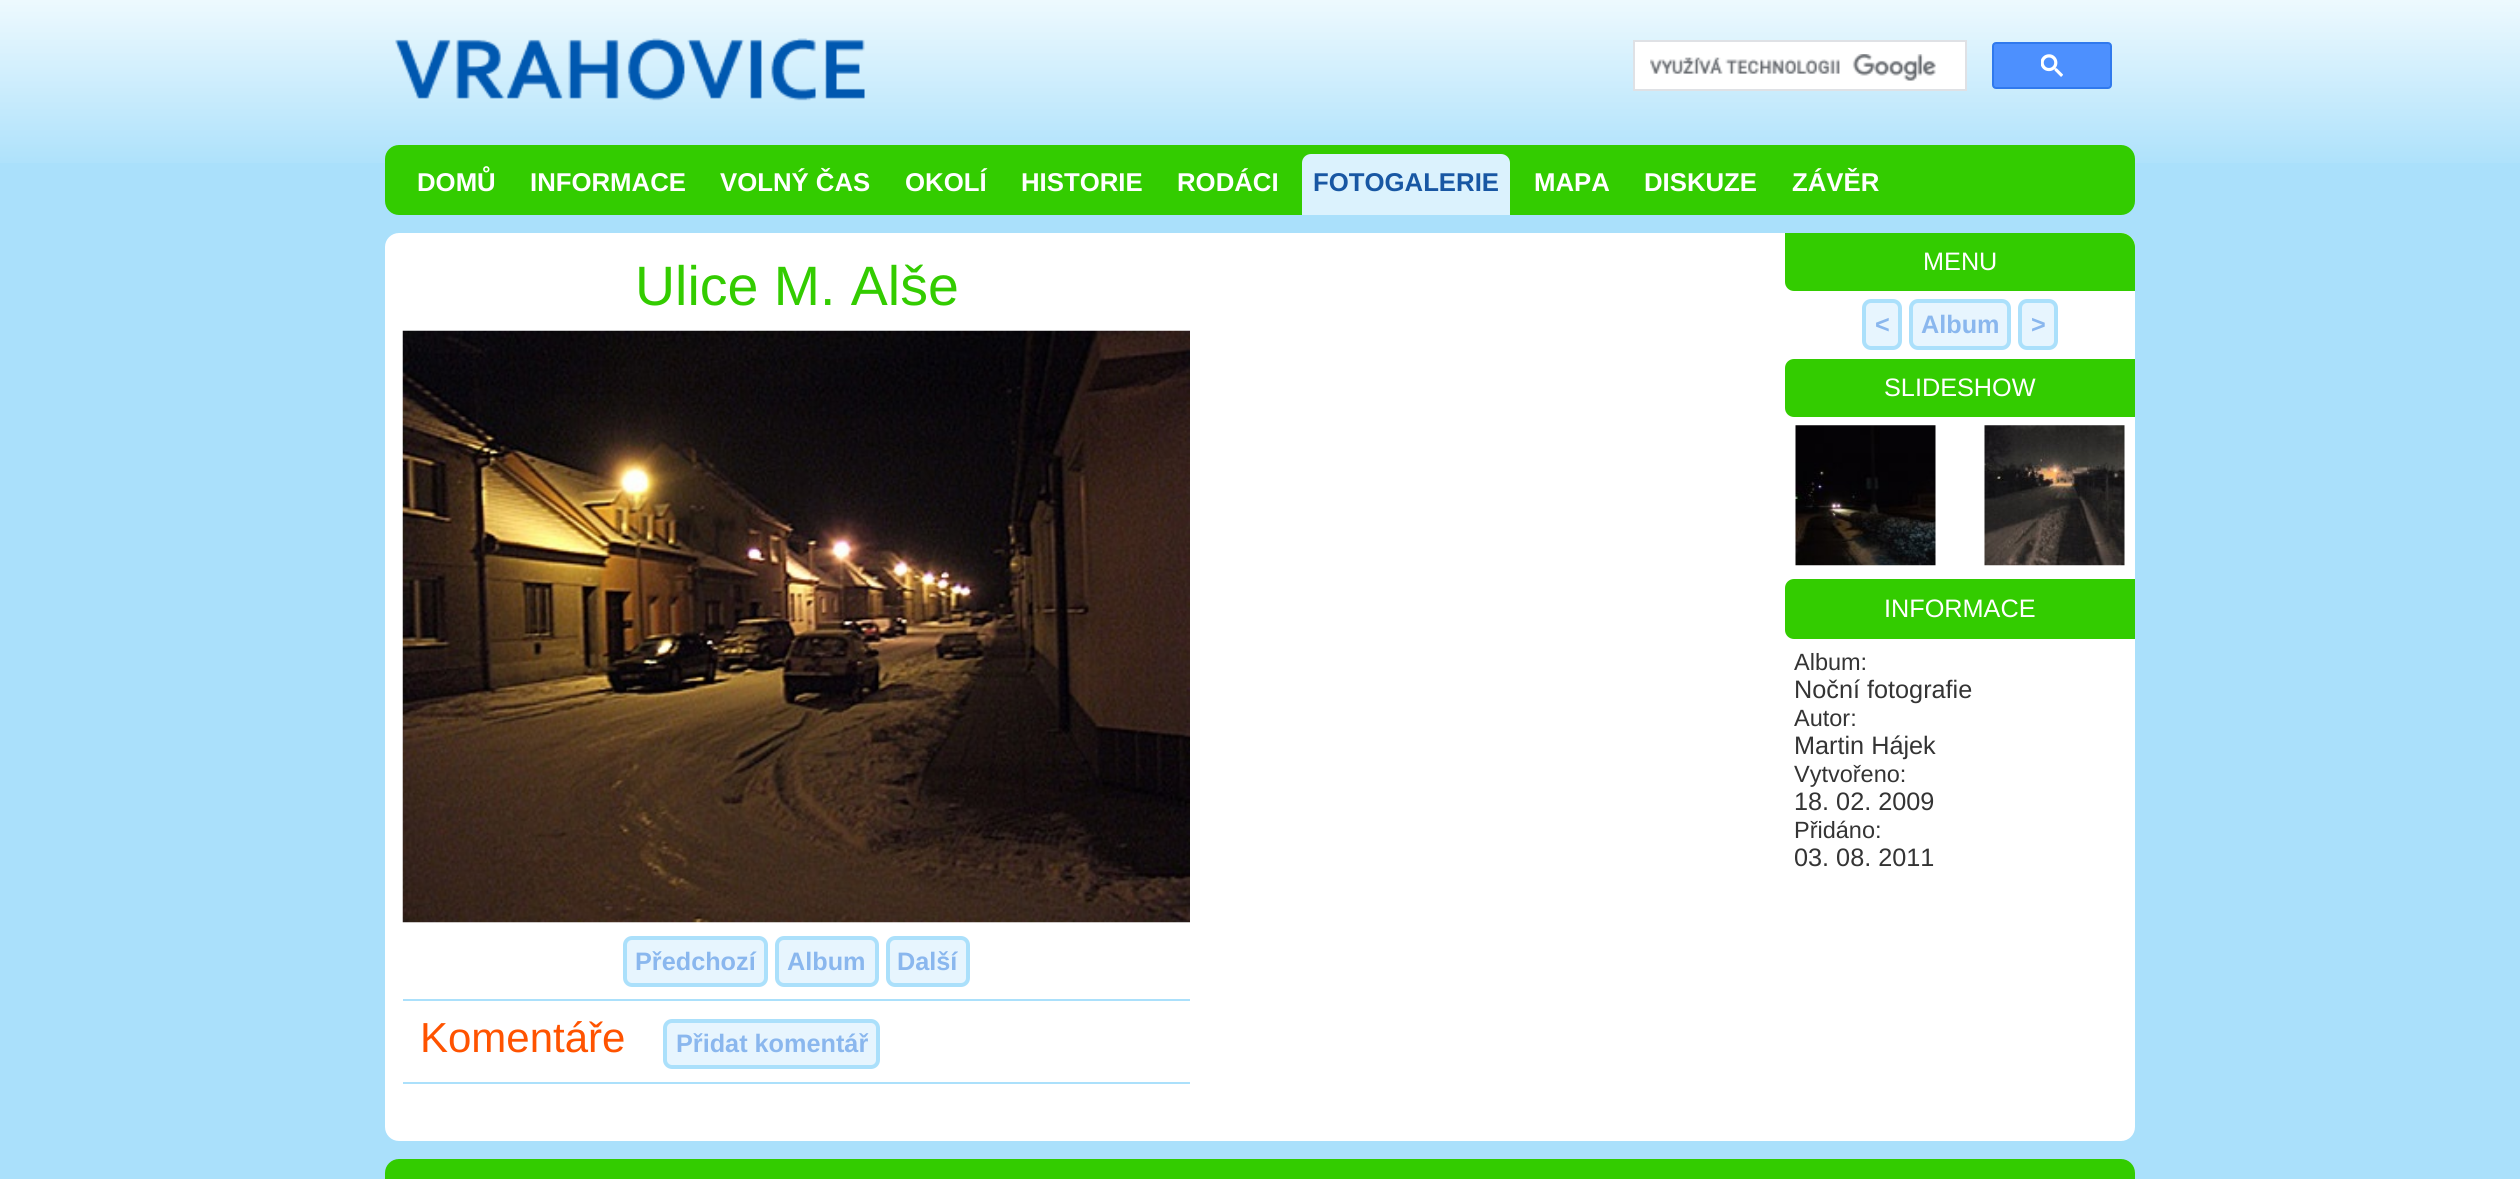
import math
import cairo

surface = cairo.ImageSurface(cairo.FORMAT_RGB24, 2520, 1179)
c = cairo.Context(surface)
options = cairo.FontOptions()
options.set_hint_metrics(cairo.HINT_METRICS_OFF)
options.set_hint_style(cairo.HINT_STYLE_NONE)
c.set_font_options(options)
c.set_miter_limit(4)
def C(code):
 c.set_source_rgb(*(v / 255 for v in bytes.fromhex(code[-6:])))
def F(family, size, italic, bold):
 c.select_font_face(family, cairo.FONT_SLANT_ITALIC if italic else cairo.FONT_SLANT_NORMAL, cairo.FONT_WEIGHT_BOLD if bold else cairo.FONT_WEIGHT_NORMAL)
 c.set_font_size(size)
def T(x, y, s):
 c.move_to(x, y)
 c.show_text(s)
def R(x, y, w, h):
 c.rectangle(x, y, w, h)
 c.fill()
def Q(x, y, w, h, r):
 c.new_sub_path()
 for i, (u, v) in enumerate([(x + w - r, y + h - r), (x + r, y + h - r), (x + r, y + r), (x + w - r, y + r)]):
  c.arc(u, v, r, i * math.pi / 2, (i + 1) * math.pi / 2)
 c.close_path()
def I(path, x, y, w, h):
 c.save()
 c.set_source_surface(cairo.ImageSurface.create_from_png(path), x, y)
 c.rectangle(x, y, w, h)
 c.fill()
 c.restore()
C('aae0fb')
c.paint()
I('1.png',0,0,2520,163)
I('2.png',395,38,470,63)
C('ffffff')
c.rectangle(1634,41,332,49)
c.fill_preserve()
C('dfe1e5')
c.stroke()
I('3.png',1650,54,286,27)
C('4d90fe')
Q(1993,43,118,45,3)
c.fill_preserve()
C('3079ed')
c.stroke()
I('4.png',2041,54,22,23)
C('33cc00')
Q(385,145,1750,70,14)
c.fill()
F('Liberation Sans',25.75,0,1)
C('ffffff')
T(417,191,'DOMŮ')
T(530,191,'INFORMACE')
T(720,191,'VOLNÝ ČAS')
T(905,191,'OKOLÍ')
T(1021,191,'HISTORIE')
T(1177,191,'RODÁCI')
C('dbf2fd')
c.new_path()
c.move_to(1311,154)
c.line_to(1501,154)
c.curve_to(1506,154,1510,158,1510,163)
c.line_to(1510,215)
c.line_to(1302,215)
c.line_to(1302,163)
c.curve_to(1302,158,1306,154,1311,154)
c.close_path()
c.fill()
C('1857a3')
T(1313,191,'FOTOGALERIE')
C('ffffff')
T(1534,191,'MAPA')
T(1644,191,'DISKUZE')
T(1792,191,'ZÁVĚR')
Q(385,233,1750,908,14)
c.fill()
F('Liberation Sans',55.5,0,0)
C('33cc00')
T(635,305,'Ulice M. Alše')
I('5.png',402,330,788,593)
C('e7f5fe')
Q(625,938,141,47,7)
c.fill_preserve()
C('abe0fb')
c.set_line_width(4)
c.stroke()
F('Liberation Sans',25.25,0,1)
C('8ab7ee')
T(635,970,'Předchozí')
C('e7f5fe')
Q(777,938,100,47,7)
c.fill_preserve()
C('abe0fb')
c.stroke()
C('8ab7ee')
T(787,970,'Album')
C('e7f5fe')
Q(888,938,80,47,7)
c.fill_preserve()
C('abe0fb')
c.stroke()
C('8ab7ee')
T(897,970,'Další')
C('abe0fb')
R(403,999,787,2)
F('Liberation Sans',42,0,0)
C('ff5300')
T(420,1052,'Komentáře')
C('e7f5fe')
Q(665,1021,213,46,7)
c.fill_preserve()
C('abe0fb')
c.stroke()
F('Liberation Sans',25.25,0,1)
C('8ab7ee')
T(676,1052,'Přidat komentář')
C('abe0fb')
R(403,1082,787,2)
C('33cc00')
c.new_path()
c.move_to(1785,233)
c.line_to(2121,233)
c.curve_to(2128.5,233,2135,239.5,2135,247)
c.line_to(2135,291)
c.line_to(1794,291)
c.curve_to(1789,291,1785,287,1785,282)
c.close_path()
c.fill()
F('Liberation Sans',25.25,0,0)
C('ffffff')
T(1923,270,'MENU')
C('e7f5fe')
Q(1864,301,36,47,7)
c.fill_preserve()
C('abe0fb')
c.stroke()
F('Liberation Sans',25.25,0,1)
C('8ab7ee')
T(1875,333,'<')
C('e7f5fe')
Q(1911,301,98,47,7)
c.fill_preserve()
C('abe0fb')
c.stroke()
C('8ab7ee')
T(1921,333,'Album')
C('e7f5fe')
Q(2020,301,36,47,7)
c.fill_preserve()
C('abe0fb')
c.stroke()
C('8ab7ee')
T(2031,333,'>')
C('33cc00')
c.new_path()
c.move_to(1794,359)
c.line_to(2135,359)
c.line_to(2135,417)
c.line_to(1794,417)
c.curve_to(1789,417,1785,413,1785,408)
c.line_to(1785,368)
c.curve_to(1785,363,1789,359,1794,359)
c.close_path()
c.fill()
F('Liberation Sans',25.25,0,0)
C('ffffff')
T(1884,396,'SLIDESHOW')
I('6.png',1795,425,141,141)
I('7.png',1984,425,141,141)
C('33cc00')
c.new_path()
c.move_to(1794,579)
c.line_to(2135,579)
c.line_to(2135,639)
c.line_to(1794,639)
c.curve_to(1789,639,1785,635,1785,630)
c.line_to(1785,588)
c.curve_to(1785,583,1789,579,1794,579)
c.close_path()
c.fill()
C('ffffff')
T(1884,617,'INFORMACE')
F('Liberation Sans',23.5,0,0)
C('343434')
T(1794,670,'Album:')
F('Liberation Sans',25.25,0,0)
T(1794,698,'Noční fotografie')
F('Liberation Sans',23.5,0,0)
T(1794,726,'Autor:')
F('Liberation Sans',25.25,0,0)
T(1794,754,'Martin Hájek')
F('Liberation Sans',23.5,0,0)
T(1794,782,'Vytvořeno:')
F('Liberation Sans',25.25,0,0)
T(1794,810,'18. 02. 2009')
F('Liberation Sans',23.5,0,0)
T(1794,838,'Přidáno:')
F('Liberation Sans',25.25,0,0)
T(1794,866,'03. 08. 2011')
C('33cc00')
Q(385,1159,1750,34,14)
c.fill()
surface.write_to_png('o.png')
